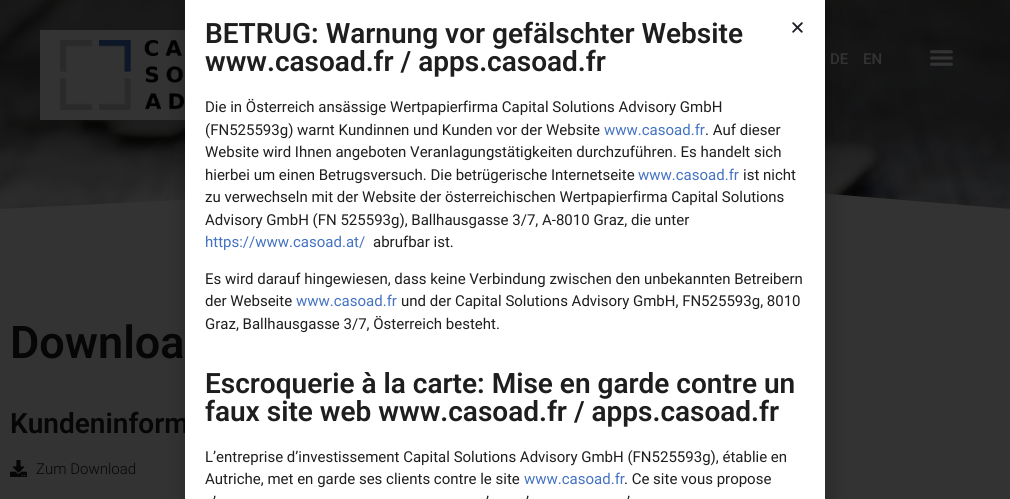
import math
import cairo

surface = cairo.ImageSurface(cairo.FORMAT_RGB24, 1010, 499)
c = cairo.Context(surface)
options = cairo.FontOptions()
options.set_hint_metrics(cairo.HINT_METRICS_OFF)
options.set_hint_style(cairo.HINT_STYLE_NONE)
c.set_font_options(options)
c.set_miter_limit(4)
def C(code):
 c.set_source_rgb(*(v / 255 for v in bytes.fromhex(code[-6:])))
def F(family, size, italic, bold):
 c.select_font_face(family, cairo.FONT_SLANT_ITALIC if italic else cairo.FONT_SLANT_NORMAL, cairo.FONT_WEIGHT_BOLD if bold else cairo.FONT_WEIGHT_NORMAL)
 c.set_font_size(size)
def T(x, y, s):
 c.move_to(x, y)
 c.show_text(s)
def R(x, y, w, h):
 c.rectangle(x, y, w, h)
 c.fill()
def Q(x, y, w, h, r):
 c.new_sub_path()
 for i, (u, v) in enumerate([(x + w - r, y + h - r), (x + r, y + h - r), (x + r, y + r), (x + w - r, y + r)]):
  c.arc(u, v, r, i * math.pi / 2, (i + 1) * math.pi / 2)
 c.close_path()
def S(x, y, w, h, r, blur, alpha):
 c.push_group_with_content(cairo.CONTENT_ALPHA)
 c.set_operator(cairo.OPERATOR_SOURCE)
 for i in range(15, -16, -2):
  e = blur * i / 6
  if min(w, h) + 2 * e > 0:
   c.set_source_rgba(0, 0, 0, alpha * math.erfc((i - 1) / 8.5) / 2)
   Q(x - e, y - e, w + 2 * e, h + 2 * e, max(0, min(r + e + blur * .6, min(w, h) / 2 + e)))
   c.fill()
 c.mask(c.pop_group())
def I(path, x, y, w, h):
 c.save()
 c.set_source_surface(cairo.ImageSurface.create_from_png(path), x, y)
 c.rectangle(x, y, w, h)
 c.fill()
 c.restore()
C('333333')
c.paint()
I('4.png',0,0,1010,209)
C('333333')
R(40,30,145,90)
I('2.png',60,40,125,70)
c.new_path()
c.move_to(240,197)
c.line_to(360,202)
c.line_to(673,181)
c.line_to(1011,209)
c.line_to(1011,210)
c.line_to(-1,210)
c.line_to(-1,209)
c.fill()
C('000000')
S(184,5,646,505,0,11.5,.2)
F('Roboto SemiBold',28,0,0)
C('060606')
T(10,433,'Kundeninform')
C('ffffff')
R(185,0,640,499)
C('1e1e1e')
T(205,43,'BETRUG: Warnung vor gefälschter Website')
T(205,71,'www.casoad.fr / apps.casoad.fr')
F('Roboto',15,0,0)
T(205,112,'Die in Österreich ansässige Wertpapierfirma Capital Solutions Advisory GmbH')
T(205,135,'(FN525593g) warnt Kundinnen und Kunden vor der Website')
C('4472c2')
T(604,135,'www.casoad.fr')
C('1e1e1e')
T(705,135,'. Auf dieser')
T(205,157,'Website wird Ihnen angeboten Veranlagungstätigkeiten durchzuführen. Es handelt sich')
T(205,180,'hierbei um einen Betrugsversuch. Die betrügerische Internetseite')
C('4472c2')
T(638,180,'www.casoad.fr')
C('1e1e1e')
T(743,180,'ist nicht')
T(205,202,'zu verwechseln mit der Website der österreichischen Wertpapierfirma Capital Solutions')
T(205,225,'Advisory GmbH (FN 525593g), Ballhausgasse 3/7, A-8010 Graz, die unter')
C('4472c2')
T(205,247,'https://www.casoad.at/')
C('1e1e1e')
T(373,247,'abrufbar ist.')
T(205,284,'Es wird darauf hingewiesen, dass keine Verbindung zwischen den unbekannten Betreibern')
T(205,306,'der Webseite')
C('4472c2')
T(296,306,'www.casoad.fr')
C('1e1e1e')
T(401,306,'und der Capital Solutions Advisory GmbH, FN525593g, 8010')
T(205,329,'Graz, Ballhausgasse 3/7, Österreich besteht.')
F('Roboto SemiBold',28,0,0)
T(205,393,'Escroquerie à la carte: Mise en garde contre un')
T(205,421,'faux site web www.casoad.fr / apps.casoad.fr')
F('Roboto',15,0,0)
T(205,462,'L’entreprise d’investissement Capital Solutions Advisory GmbH (FN525593g), établie en')
T(205,484,'Autriche, met en garde ses clients contre le site')
C('4472c2')
T(524,484,'www.casoad.fr')
C('1e1e1e')
T(624,484,'. Ce site vous propose')
T(213,507,'’')
T(486,507,'’')
T(526,507,'’')
T(627,507,'’')
I('1.png',792,22,11,11)
F('Roboto Medium',15,0,0)
C('333333')
T(830,64,'DE')
T(863,64,'EN')
I('3.png',930,50,23,16)
F('Roboto SemiBold',45,0,0)
C('060606')
T(10,358,'Downloa')
I('5.png',10,460,17,17)
F('Roboto Light',15,0,0)
T(36,474,'Zum Download')
surface.write_to_png('o.png')
